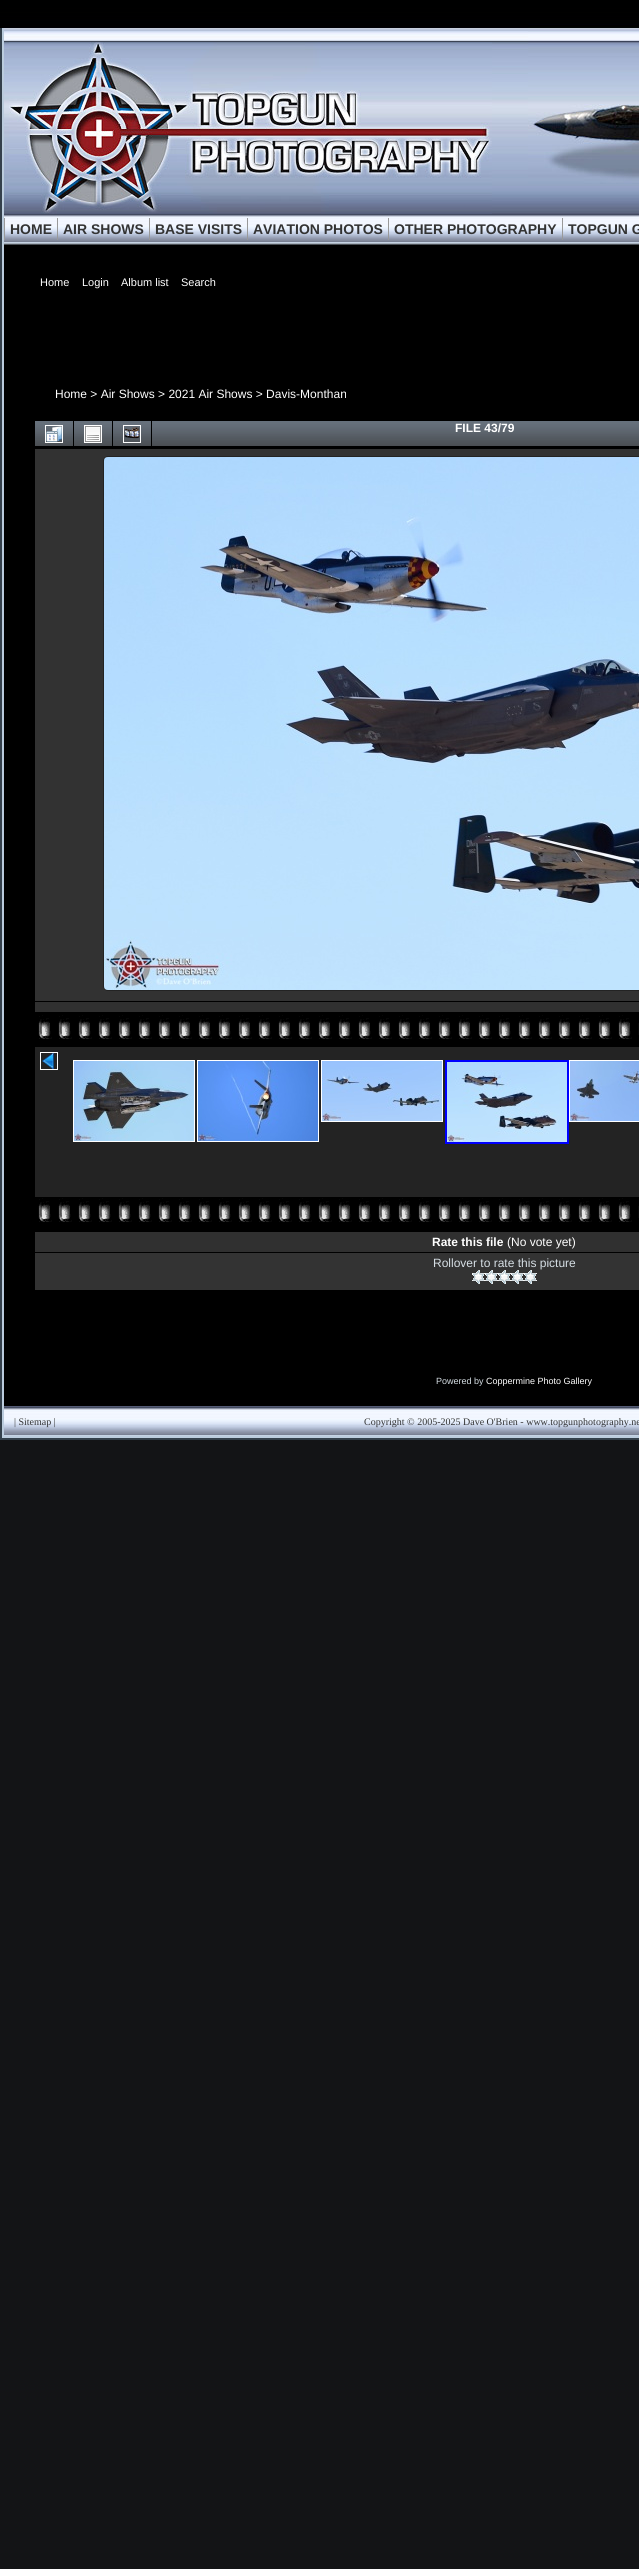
import math
import cairo

surface = cairo.ImageSurface(cairo.FORMAT_RGB24, 639, 2569)
c = cairo.Context(surface)
options = cairo.FontOptions()
options.set_hint_metrics(cairo.HINT_METRICS_OFF)
options.set_hint_style(cairo.HINT_STYLE_NONE)
c.set_font_options(options)
c.set_miter_limit(4)
def C(code):
 c.set_source_rgb(*(v / 255 for v in bytes.fromhex(code[-6:])))
def F(family, size, italic, bold):
 c.select_font_face(family, cairo.FONT_SLANT_ITALIC if italic else cairo.FONT_SLANT_NORMAL, cairo.FONT_WEIGHT_BOLD if bold else cairo.FONT_WEIGHT_NORMAL)
 c.set_font_size(size)
def T(x, y, s):
 c.move_to(x, y)
 c.show_text(s)
def R(x, y, w, h):
 c.rectangle(x, y, w, h)
 c.fill()
def Q(x, y, w, h, r):
 c.new_sub_path()
 for i, (u, v) in enumerate([(x + w - r, y + h - r), (x + r, y + h - r), (x + r, y + r), (x + w - r, y + r)]):
  c.arc(u, v, r, i * math.pi / 2, (i + 1) * math.pi / 2)
 c.close_path()
def I(path, x, y, w, h):
 c.save()
 c.set_source_surface(cairo.ImageSurface.create_from_png(path), x, y)
 c.rectangle(x, y, w, h)
 c.fill()
 c.restore()
C('131416')
c.paint()
I('1.png',0,0,639,28)
C('000000')
R(4,268,635,1138)
C('34404b')
R(0,1438,639,2)
R(0,28,2,1412)
c.rectangle(3,29,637,1408)
C('bbccdd')
c.stroke()
C('000000')
R(4,28,635,240)
I('2.png',4,27,635,218)
I('3.png',9,42,483,172)
I('4.png',528,24,111,160)
C('999999')
R(4,218,1,22)
F('Liberation Sans',14,0,1)
C('333333')
T(10,234,'HOME')
C('999999')
R(57,218,1,22)
C('333333')
T(63,234,'AIR SHOWS')
C('999999')
R(149,218,1,22)
C('333333')
T(155,234,'BASE VISITS')
C('999999')
R(247,218,1,22)
C('333333')
T(253,234,'AVIATION PHOTOS')
C('999999')
R(388,218,1,22)
C('333333')
T(394,234,'OTHER PHOTOGRAPHY')
C('999999')
R(562,218,1,22)
C('333333')
T(568,234,'TOPGUN G')
F('Liberation Sans',11,0,0)
C('ffffff')
T(40,286,'Home')
T(82,286,'Login')
T(121,286,'Album list')
T(181,286,'Search')
F('Liberation Sans',12,0,0)
T(55,398,'Home > Air Shows > 2021 Air Shows > Davis-Monthan')
I('5.png',35,421,38,25)
c.rectangle(45.5,425.5,17,17)
c.set_line_width(1)
c.stroke()
I('6.png',46,426,16,16)
I('5.png',74,421,38,25)
c.rectangle(84.5,425.5,17,17)
c.stroke()
I('7.png',85,426,16,16)
I('5.png',113,421,38,25)
c.rectangle(123.5,425.5,17,17)
c.stroke()
I('8.png',124,427,16,12)
I('9.png',152,421,487,25)
F('Liberation Sans',12,0,1)
T(455,432,'FILE 43/79')
C('323232')
R(35,449,604,552)
Q(103.5,456.5,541,534,4.5)
C('232323')
c.stroke()
I('10.png',104,457,535,533)
C('303030')
R(35,1002,604,10)
I('11.png',38,1015,601,24)
C('232323')
R(35,1047,604,150)
c.rectangle(40.5,1052.5,17,17)
C('ffffff')
c.stroke()
I('12.png',42,1053,12,16)
c.rectangle(73.5,1060.5,121,81)
c.stroke()
I('13.png',74,1061,120,80)
c.rectangle(197.5,1060.5,121,81)
c.stroke()
I('14.png',198,1061,120,80)
c.rectangle(321.5,1060.5,121,61)
c.stroke()
I('15.png',322,1061,120,60)
c.rectangle(446,1061,122,82)
C('0000ff')
c.set_line_width(2)
c.stroke()
I('16.png',447,1062,120,80)
c.rectangle(569.5,1060.5,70,61)
C('ffffff')
c.set_line_width(1)
c.stroke()
I('17.png',570,1061,69,60)
I('11.png',38,1198,601,24)
C('303030')
R(35,1232,604,20)
C('ffffff')
T(432,1246,'Rate this file')
F('Liberation Sans',12,0,0)
T(507,1246,'(No vote yet)')
C('333333')
R(35,1253,604,37)
C('d6dfe5')
T(433,1267,'Rollover to rate this picture')
I('18.png',472,1270,13,14)
I('18.png',485,1270,13,14)
I('18.png',498,1270,13,14)
I('18.png',511,1270,13,14)
I('18.png',524,1270,13,14)
F('Liberation Sans',9,0,0)
T(436,1384,'Powered by')
C('ffffff')
T(486,1384,'Coppermine Photo Gallery')
I('19.png',4,1406,635,30)
F('Liberation Serif',10,0,0)
C('333333')
T(14,1425,'| Sitemap |')
T(364,1425,'Copyright © 2005-2025 Dave O\'Brien - www.topgunphotography.ne')
surface.write_to_png('o.png')
